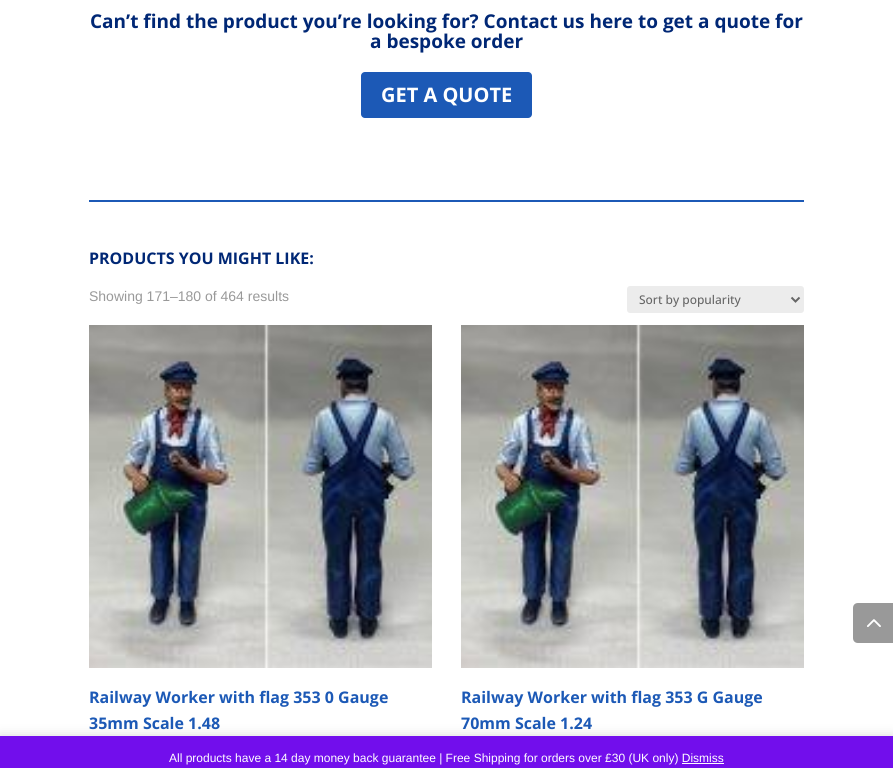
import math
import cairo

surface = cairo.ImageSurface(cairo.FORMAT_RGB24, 893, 768)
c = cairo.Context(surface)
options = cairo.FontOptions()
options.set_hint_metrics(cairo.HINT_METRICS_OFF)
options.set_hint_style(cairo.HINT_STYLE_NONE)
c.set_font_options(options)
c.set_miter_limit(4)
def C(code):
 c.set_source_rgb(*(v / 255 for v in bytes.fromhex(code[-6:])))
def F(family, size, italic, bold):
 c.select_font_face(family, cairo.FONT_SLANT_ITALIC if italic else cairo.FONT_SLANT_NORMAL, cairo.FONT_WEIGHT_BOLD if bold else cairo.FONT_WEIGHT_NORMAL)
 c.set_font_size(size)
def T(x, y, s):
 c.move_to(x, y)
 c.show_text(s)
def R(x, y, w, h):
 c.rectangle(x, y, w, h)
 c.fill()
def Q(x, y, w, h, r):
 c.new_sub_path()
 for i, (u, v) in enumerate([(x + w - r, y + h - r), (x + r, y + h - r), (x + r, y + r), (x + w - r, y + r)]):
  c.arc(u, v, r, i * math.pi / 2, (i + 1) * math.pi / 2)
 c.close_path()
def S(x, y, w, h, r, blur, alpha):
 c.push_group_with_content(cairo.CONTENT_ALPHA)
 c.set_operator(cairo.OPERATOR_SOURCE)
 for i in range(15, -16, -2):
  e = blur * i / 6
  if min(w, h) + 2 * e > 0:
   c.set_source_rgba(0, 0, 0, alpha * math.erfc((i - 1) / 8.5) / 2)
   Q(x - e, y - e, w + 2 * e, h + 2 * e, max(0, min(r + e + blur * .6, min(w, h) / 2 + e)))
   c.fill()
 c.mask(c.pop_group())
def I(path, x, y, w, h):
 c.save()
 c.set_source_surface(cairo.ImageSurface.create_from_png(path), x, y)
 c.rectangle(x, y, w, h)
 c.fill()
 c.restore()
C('ffffff')
c.paint()
F('Open Sans',19,0,1)
C('002775')
T(90,28,'Can’t find the product you’re looking for? Contact us here to get a quote for')
T(370,48,'a bespoke order')
C('1c59b6')
Q(360,71,173,48,5)
c.fill_preserve()
C('ffffff')
c.stroke()
F('Open Sans',20,0,1)
T(381,102,'GET A QUOTE')
C('1c59b6')
R(89,200,715,2)
F('Open Sans',16,0,1)
C('002775')
T(89,264,'PRODUCTS YOU MIGHT LIKE:')
F('Liberation Sans',14,0,0)
C('999999')
T(89,301,'Showing 171–180 of 464 results')
C('ececec')
Q(627,286,177,27,3)
c.fill()
c.new_path()
c.move_to(791.5,297.5)
c.line_to(795.5,301.5)
c.line_to(799.5,297.5)
C('666666')
c.stroke()
F('Open Sans Medium',12,0,0)
T(639,304,'Sort by popularity')
I('1.png',89,325,343,343)
F('Open Sans',16,0,1)
C('1c59b6')
T(89,703,'Railway Worker with flag 353 0 Gauge')
T(89,729,'35mm Scale 1.48')
I('2.png',461,325,343,343)
T(461,703,'Railway Worker with flag 353 G Gauge')
T(461,729,'70mm Scale 1.24')
C('999999')
c.new_path()
c.move_to(858,603)
c.line_to(893,603)
c.line_to(893,643)
c.line_to(858,643)
c.curve_to(855,643,853,641,853,638)
c.line_to(853,608)
c.curve_to(853,605,855,603,858,603)
c.close_path()
c.fill()
I('3.png',867,619,14,8)
C('000000')
S(0,737,893,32,0,6,.2)
C('720eec')
R(0,736,893,32)
F('Liberation Sans',12,0,0)
C('ffffff')
T(169,762,'All products have a 14 day money back guarantee | Free Shipping for orders over £30 (UK only) Dismiss')
C('fcfbfe')
R(682,763,42,1)
surface.write_to_png('o.png')
